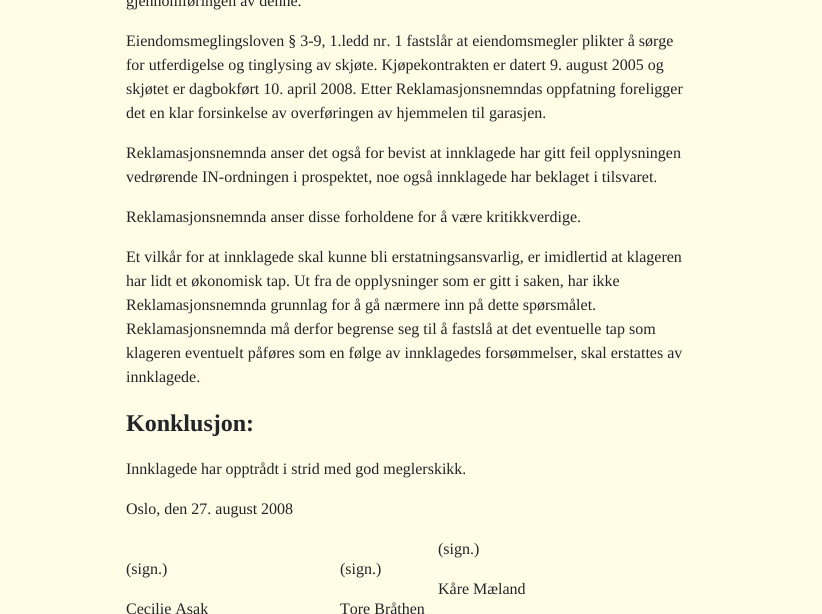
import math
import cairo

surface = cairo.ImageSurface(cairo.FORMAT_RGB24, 822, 614)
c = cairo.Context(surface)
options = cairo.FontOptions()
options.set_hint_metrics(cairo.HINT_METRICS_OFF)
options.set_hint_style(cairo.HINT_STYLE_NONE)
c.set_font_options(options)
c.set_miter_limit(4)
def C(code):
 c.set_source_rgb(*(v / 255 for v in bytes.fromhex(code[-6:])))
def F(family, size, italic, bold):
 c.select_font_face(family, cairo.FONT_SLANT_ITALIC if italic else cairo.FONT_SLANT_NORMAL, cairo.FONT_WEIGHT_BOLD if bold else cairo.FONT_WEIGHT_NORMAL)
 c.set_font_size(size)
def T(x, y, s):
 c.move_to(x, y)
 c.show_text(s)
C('fffde6')
c.paint()
F('Liberation Serif',16,0,0)
C('212529')
T(126,6,'gjennomføringen av denne.')
T(126,46,'Eiendomsmeglingsloven § 3-9, 1.ledd nr. 1 fastslår at eiendomsmegler plikter å sørge')
T(126,70,'for utferdigelse og tinglysing av skjøte. Kjøpekontrakten er datert 9. august 2005 og')
T(126,94,'skjøtet er dagbokført 10. april 2008. Etter Reklamasjonsnemndas oppfatning foreligger')
T(126,118,'det en klar forsinkelse av overføringen av hjemmelen til garasjen.')
T(126,158,'Reklamasjonsnemnda anser det også for bevist at innklagede har gitt feil opplysningen')
T(126,182,'vedrørende IN-ordningen i prospektet, noe også innklagede har beklaget i tilsvaret.')
T(126,222,'Reklamasjonsnemnda anser disse forholdene for å være kritikkverdige.')
T(126,262,'Et vilkår for at innklagede skal kunne bli erstatningsansvarlig, er imidlertid at klageren')
T(126,286,'har lidt et økonomisk tap. Ut fra de opplysninger som er gitt i saken, har ikke')
T(126,310,'Reklamasjonsnemnda grunnlag for å gå nærmere inn på dette spørsmålet.')
T(126,334,'Reklamasjonsnemnda må derfor begrense seg til å fastslå at det eventuelle tap som')
T(126,358,'klageren eventuelt påføres som en følge av innklagedes forsømmelser, skal erstattes av')
T(126,382,'innklagede.')
F('Liberation Serif',24,0,1)
T(126,431,'Konklusjon:')
F('Liberation Serif',16,0,0)
T(126,474,'Innklagede har opptrådt i strid med god meglerskikk.')
T(126,514,'Oslo, den 27. august 2008')
T(126,574,'(sign.)')
T(126,614,'Cecilie Asak')
T(340,574,'(sign.)')
T(340,614,'Tore Bråthen')
T(438,554,'(sign.)')
T(438,594,'Kåre Mæland')
surface.write_to_png('o.png')
